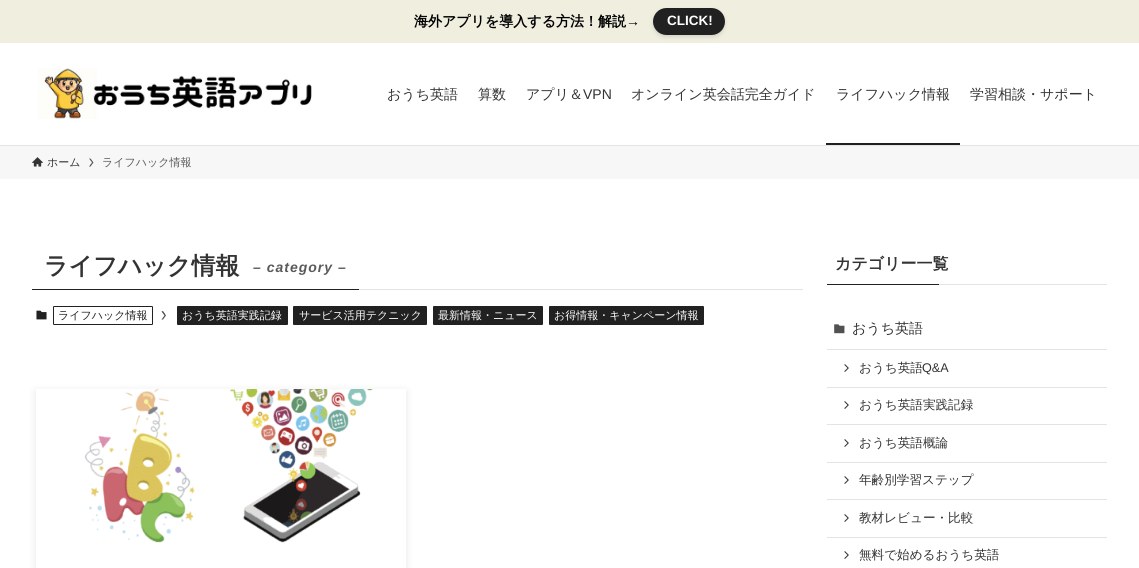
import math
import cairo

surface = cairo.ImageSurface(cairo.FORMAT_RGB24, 1139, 568)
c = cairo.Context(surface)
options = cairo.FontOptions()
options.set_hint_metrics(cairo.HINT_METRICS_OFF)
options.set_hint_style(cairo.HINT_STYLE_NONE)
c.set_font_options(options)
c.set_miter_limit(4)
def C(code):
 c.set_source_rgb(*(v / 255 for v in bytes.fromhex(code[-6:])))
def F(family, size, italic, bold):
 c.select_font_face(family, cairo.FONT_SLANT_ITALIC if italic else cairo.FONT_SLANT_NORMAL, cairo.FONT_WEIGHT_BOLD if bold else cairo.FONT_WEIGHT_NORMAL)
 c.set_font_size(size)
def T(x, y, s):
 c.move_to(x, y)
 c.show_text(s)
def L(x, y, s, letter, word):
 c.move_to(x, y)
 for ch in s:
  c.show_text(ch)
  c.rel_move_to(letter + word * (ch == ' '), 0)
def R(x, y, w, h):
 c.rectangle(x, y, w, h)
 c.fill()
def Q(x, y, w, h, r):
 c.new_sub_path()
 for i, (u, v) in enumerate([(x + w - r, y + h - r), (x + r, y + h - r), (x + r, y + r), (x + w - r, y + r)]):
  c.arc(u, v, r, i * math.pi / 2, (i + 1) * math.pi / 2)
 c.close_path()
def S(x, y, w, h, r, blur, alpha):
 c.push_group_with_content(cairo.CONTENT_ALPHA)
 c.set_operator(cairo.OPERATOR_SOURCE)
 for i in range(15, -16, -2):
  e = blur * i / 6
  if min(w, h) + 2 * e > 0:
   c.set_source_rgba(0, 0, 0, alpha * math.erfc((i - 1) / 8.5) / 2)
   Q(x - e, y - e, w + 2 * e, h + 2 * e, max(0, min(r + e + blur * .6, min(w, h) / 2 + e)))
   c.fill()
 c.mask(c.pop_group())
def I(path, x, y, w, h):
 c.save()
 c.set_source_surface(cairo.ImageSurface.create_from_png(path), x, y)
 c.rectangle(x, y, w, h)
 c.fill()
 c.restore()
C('ffffff')
c.paint()
C('efeedf')
R(0,0,1139,43)
F('WenQuanYi Zen Hei',14,0,1)
C('000000')
T(414,26,'海外アプリを導入する方法！解説')
F('Liberation Sans',14,0,1)
T(626,26,'→')
C('000000')
S(653,10,72,27,13.5,2,.12)
C('212121')
Q(653,8,72,27,13.5)
c.fill()
F('Liberation Sans',13.5,0,1)
C('ffffff')
T(667,25,'CLICK!')
C('e4e4e4')
R(0,145,1139,1)
I('1.png',38,68,274,51)
F('WenQuanYi Zen Hei Medium',14,0,0)
C('333333')
T(387,99,'おうち英語')
T(478,99,'算数')
T(526,99,'アプリ＆')
F('Liberation Sans',14,0,0)
T(583,99,'VPN')
F('WenQuanYi Zen Hei Medium',14,0,0)
T(631,99,'オンライン英会話完全ガイド')
T(836,99,'ライフハック情報')
C('212121')
R(826,143,134,2)
C('333333')
T(970,99,'学習相談・サポート')
C('f7f7f7')
R(0,146,1139,33)
I('2.png',32,157,11,10)
F('WenQuanYi Zen Hei Medium',11,0,0)
C('333333')
T(47,166,'ホーム')
C('5a5a5a')
c.new_path()
c.move_to(90.5,158.5)
c.line_to(89,158.5)
c.line_to(92,162.5)
c.line_to(89,166.5)
c.line_to(90.5,166.5)
c.line_to(93.5,162.5)
c.close_path()
c.fill()
T(102,166,'ライフハック情報')
C('e3e3e3')
R(359,289,444,1)
C('212121')
R(32,289,327,1)
F('WenQuanYi Zen Hei',24,0,1)
C('333333')
T(44,274,'ライフハック情報')
F('Liberation Sans',14,1,1)
C('5a5a5a')
L(253,272,'– category –',1,0)
I('3.png',36,310,11,10)
Q(53.5,306.5,99,18,.5)
C('212121')
c.set_line_width(1)
c.stroke()
F('WenQuanYi Zen Hei Medium',11,0,0)
T(58,319,'ライフハック情報')
C('4d4d4d')
c.new_path()
c.move_to(163,311)
c.line_to(161.5,311.5)
c.line_to(164.5,315.5)
c.line_to(161.5,319.5)
c.line_to(163,319.5)
c.line_to(166,315.5)
c.close_path()
c.fill()
C('212121')
Q(177,306,111,19,1)
c.fill()
C('ffffff')
T(182,319,'おうち英語実践記録')
C('212121')
Q(293,306,134,19,1)
c.fill()
C('ffffff')
T(299,319,'サービス活用テクニック')
C('212121')
Q(433,306,110,19,1)
c.fill()
C('ffffff')
T(438,319,'最新情報・ニュース')
C('212121')
Q(549,306,155,19,1)
c.fill()
C('ffffff')
T(554,319,'お得情報・キャンペーン情報')
c.save()
c.set_fill_rule(cairo.FILL_RULE_EVEN_ODD)
c.new_path()
c.move_to(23,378)
c.line_to(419,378)
c.line_to(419,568)
c.line_to(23,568)
c.close_path()
c.move_to(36,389)
c.line_to(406,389)
c.line_to(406,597)
c.line_to(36,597)
c.close_path()
c.clip()
C('000000')
S(36,391,370,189,0,4,.1)
c.restore()
I('4.png',84,389,289,154)
F('WenQuanYi Zen Hei',16,0,1)
C('333333')
T(835,269,'カテゴリー一覧')
C('212121')
R(827,284,112,1)
C('e3e3e3')
R(939,284,168,1)
R(827,349,280,1)
I('5.png',834,324,11,10)
F('WenQuanYi Zen Hei Medium',14,0,0)
C('333333')
T(852,333,'おうち英語')
C('e3e3e3')
R(827,387,280,1)
I('6.png',844,364,5,8)
F('WenQuanYi Zen Hei Medium',12.6,0,0)
C('333333')
T(859,372,'おうち英語')
F('Liberation Sans',12.6,0,0)
T(922,372,'Q&A')
C('e3e3e3')
R(827,424,280,1)
I('6.png',844,401,5,8)
F('WenQuanYi Zen Hei Medium',12.6,0,0)
C('333333')
T(859,409,'おうち英語実践記録')
C('e3e3e3')
R(827,462,280,1)
I('6.png',844,439,5,8)
C('333333')
T(859,447,'おうち英語概論')
C('e3e3e3')
R(827,499,280,1)
I('6.png',844,476,5,8)
C('333333')
T(859,484,'年齢別学習ステップ')
C('e3e3e3')
R(827,537,280,1)
I('6.png',844,514,5,8)
C('333333')
T(859,522,'教材レビュー・比較')
I('6.png',844,551,5,8)
T(859,559,'無料で始めるおうち英語')
surface.write_to_png('o.png')
